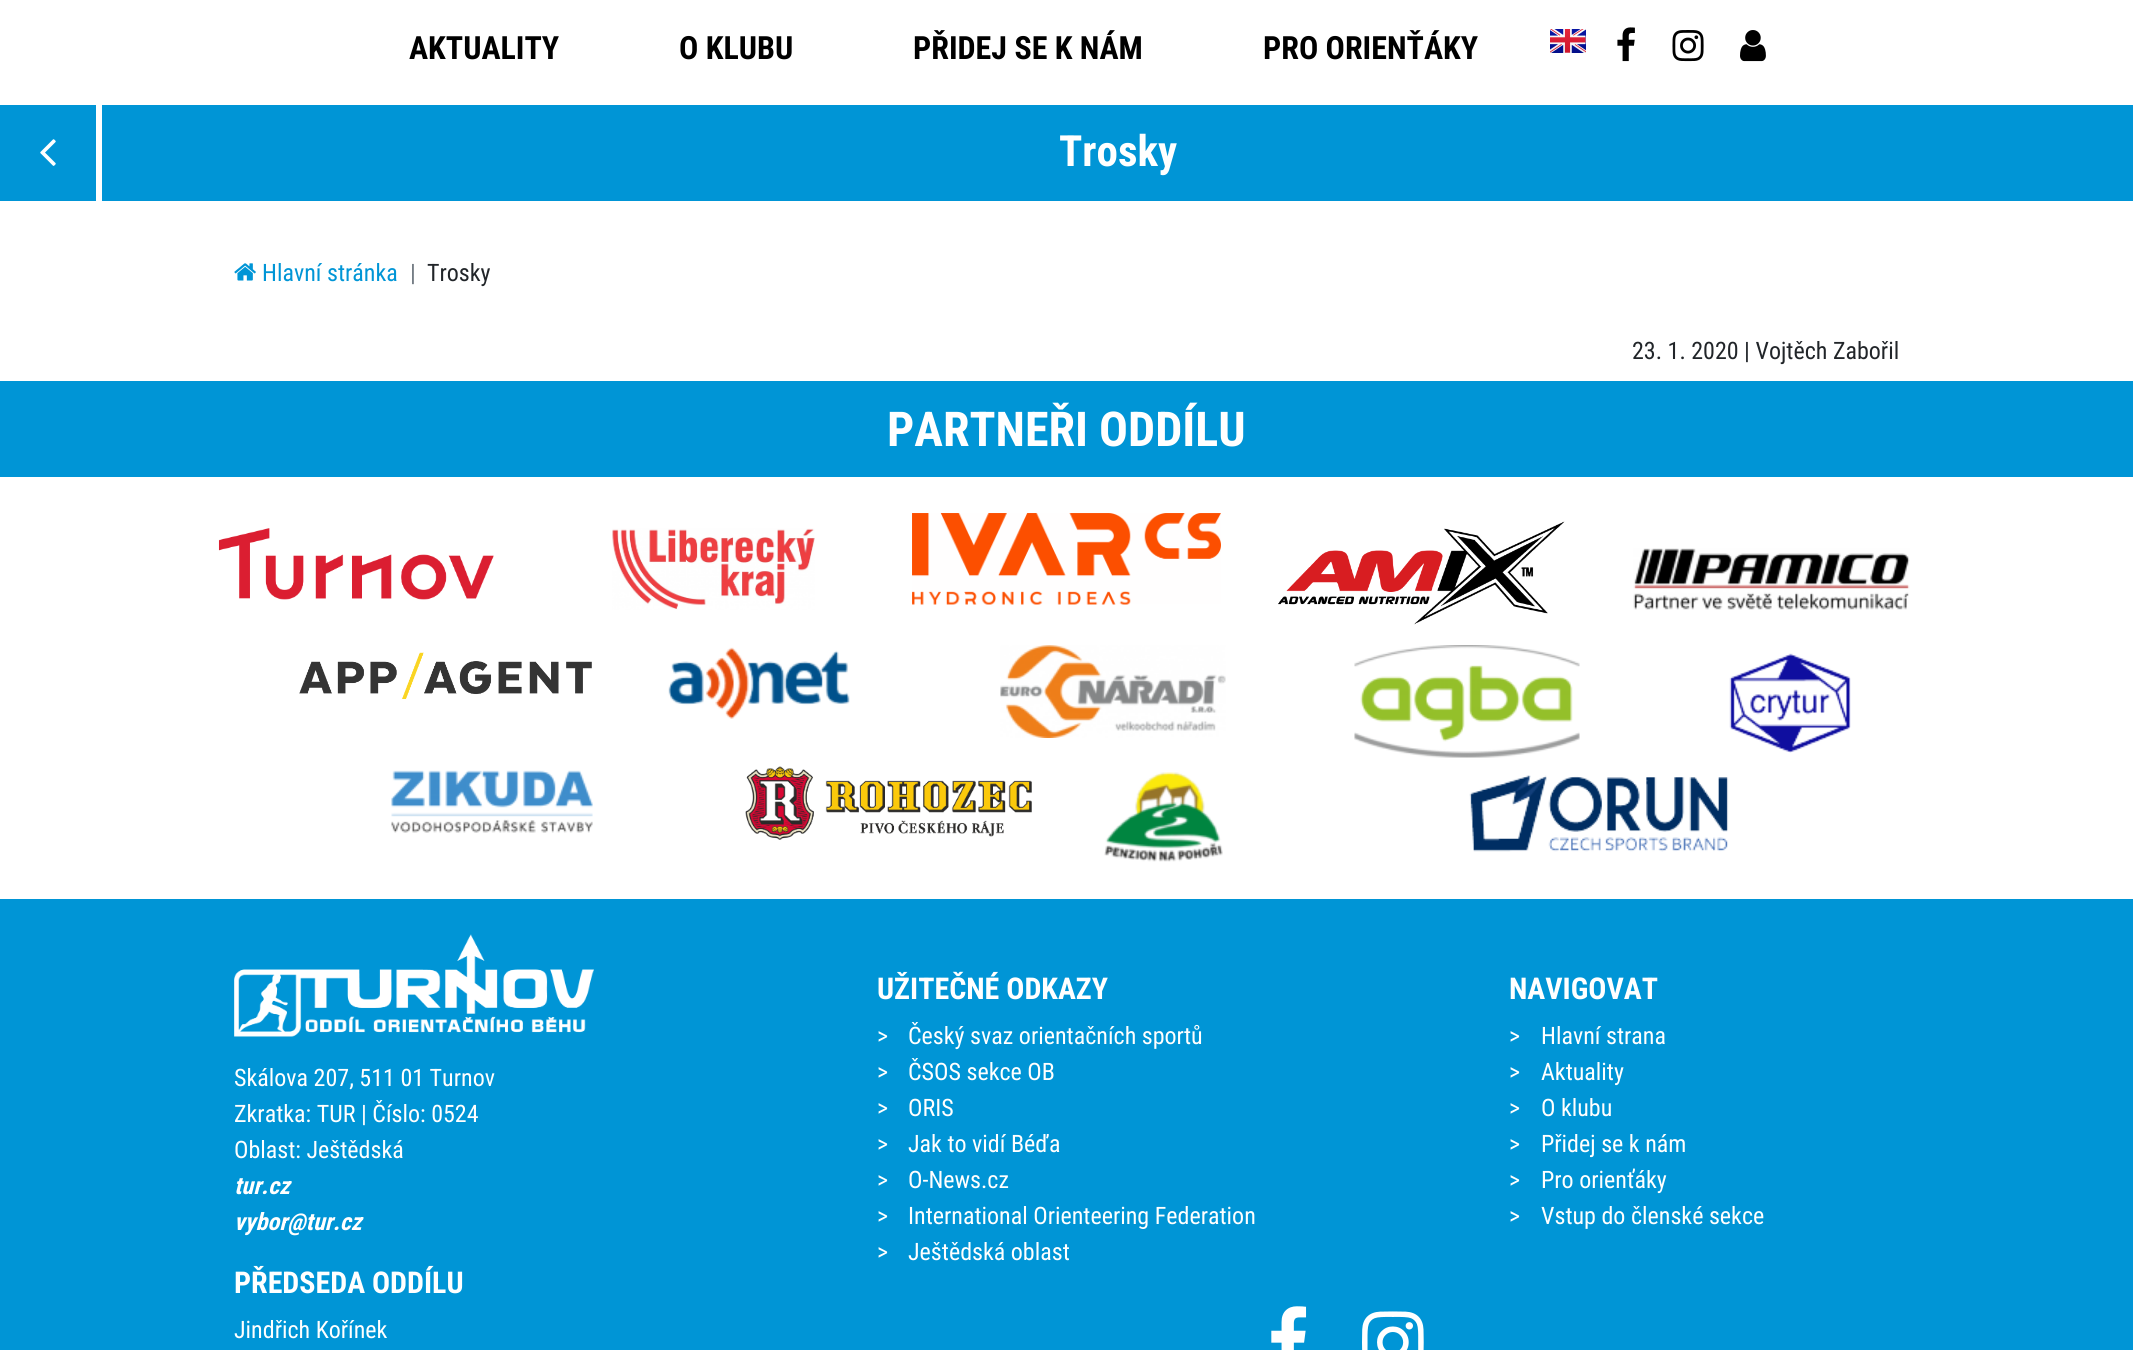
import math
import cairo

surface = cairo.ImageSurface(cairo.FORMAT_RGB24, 2133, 1350)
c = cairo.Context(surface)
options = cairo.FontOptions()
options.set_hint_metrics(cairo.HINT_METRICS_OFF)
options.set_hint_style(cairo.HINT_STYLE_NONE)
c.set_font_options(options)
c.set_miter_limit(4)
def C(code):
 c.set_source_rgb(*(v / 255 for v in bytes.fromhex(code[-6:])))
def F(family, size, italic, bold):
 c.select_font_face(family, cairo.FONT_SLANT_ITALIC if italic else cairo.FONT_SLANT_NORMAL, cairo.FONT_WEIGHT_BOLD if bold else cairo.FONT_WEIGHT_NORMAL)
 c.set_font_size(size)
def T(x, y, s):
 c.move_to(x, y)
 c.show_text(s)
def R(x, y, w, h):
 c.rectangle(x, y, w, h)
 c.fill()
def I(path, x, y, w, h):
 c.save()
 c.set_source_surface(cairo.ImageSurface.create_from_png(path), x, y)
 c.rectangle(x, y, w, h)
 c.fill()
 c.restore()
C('ffffff')
c.paint()
F('Roboto Condensed',32,0,1)
C('000000')
T(409,59,'AKTUALITY')
T(679,59,'O KLUBU')
T(913,59,'PŘIDEJ SE K NÁM')
T(1263,59,'PRO ORIENŤÁKY')
I('1.png',1550,29,36,24)
I('2.png',1617,27,18,35)
I('3.png',1672,30,32,32)
I('4.png',1740,30,26,32)
C('0095d6')
R(0,105,96,96)
I('5.png',40,139,16,27)
R(102,105,2031,96)
F('Roboto Condensed',43,0,1)
C('ffffff')
T(1059,166,'Trosky')
I('6.png',234,263,22,18)
F('Roboto Condensed',24,0,0)
C('0095d6')
T(262,281,'Hlavní stránka')
C('6c757d')
T(410,281,'|')
C('212529')
T(427,281,'Trosky')
T(1632,359,'23. 1. 2020 | Vojtěch Zabořil')
C('0095d6')
R(0,381,2133,96)
F('Roboto Condensed',48,0,1)
C('ffffff')
T(887,446,'PARTNEŘI ODDÍLU')
I('7.png',218,528,276,72)
I('8.png',612,528,203,82)
I('9.png',912,513,309,92)
I('10.png',1278,521,287,104)
I('11.png',1633,548,277,62)
I('12.png',299,652,293,47)
I('13.png',668,647,182,72)
I('14.png',1000,645,226,93)
I('15.png',1354,645,226,113)
I('16.png',1729,653,122,100)
I('17.png',391,770,202,63)
I('18.png',745,766,287,74)
I('19.png',1104,772,119,90)
I('20.png',1469,775,260,77)
C('0095d6')
R(0,899,2133,451)
I('21.png',234,934,360,103)
F('Roboto Condensed',24,0,0)
C('ffffff')
T(234,1086,'Skálova 207, 511 01 Turnov')
T(234,1122,'Zkratka: TUR | Číslo: 0524')
T(234,1158,'Oblast: Ještědská')
F('Roboto Condensed',24,1,1)
T(234,1194,'tur.cz')
T(234,1230,'vybor@tur.cz')
F('Roboto Condensed',30,0,1)
T(234,1293,'PŘEDSEDA ODDÍLU')
F('Roboto Condensed',24,0,0)
T(234,1338,'Jindřich Kořínek')
F('Roboto Condensed',30,0,1)
T(877,999,'UŽITEČNÉ ODKAZY')
F('Roboto Condensed',24,0,0)
T(877,1044,'>')
T(908,1044,'Český svaz orientačních sportů')
T(877,1080,'>')
T(908,1080,'ČSOS sekce OB')
T(877,1116,'>')
T(908,1116,'ORIS')
T(877,1152,'>')
T(908,1152,'Jak to vidí Béďa')
T(877,1188,'>')
T(908,1188,'O-News.cz')
T(877,1224,'>')
T(908,1224,'International Orienteering Federation')
T(877,1260,'>')
T(908,1260,'Ještědská oblast')
F('Roboto Condensed',30,0,1)
T(1509,999,'NAVIGOVAT')
F('Roboto Condensed',24,0,0)
T(1509,1044,'>')
T(1541,1044,'Hlavní strana')
T(1509,1080,'>')
T(1541,1080,'Aktuality')
T(1509,1116,'>')
T(1541,1116,'O klubu')
T(1509,1152,'>')
T(1541,1152,'Přidej se k nám')
T(1509,1188,'>')
T(1541,1188,'Pro orienťáky')
T(1509,1224,'>')
T(1541,1224,'Vstup do členské sekce')
I('22.png',1271,1306,36,44)
I('23.png',1362,1311,62,39)
surface.write_to_png('o.png')
